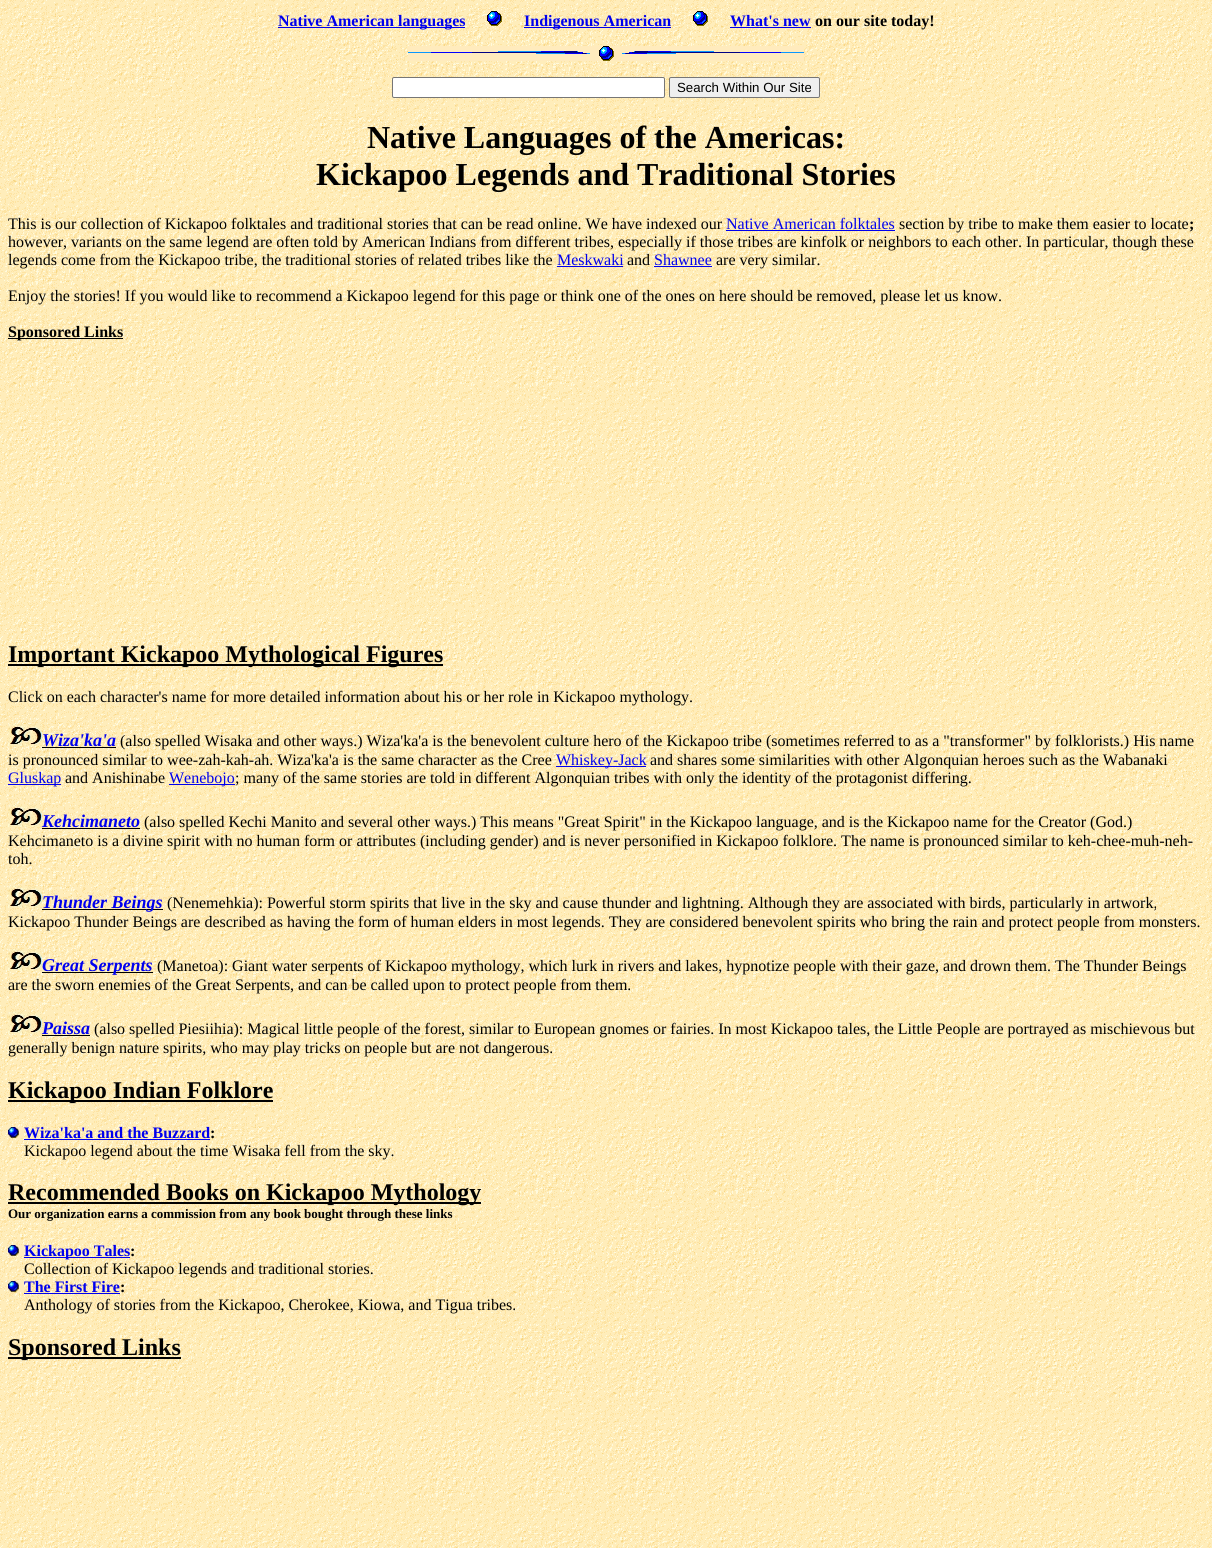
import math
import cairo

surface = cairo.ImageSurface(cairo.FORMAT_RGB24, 1212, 1548)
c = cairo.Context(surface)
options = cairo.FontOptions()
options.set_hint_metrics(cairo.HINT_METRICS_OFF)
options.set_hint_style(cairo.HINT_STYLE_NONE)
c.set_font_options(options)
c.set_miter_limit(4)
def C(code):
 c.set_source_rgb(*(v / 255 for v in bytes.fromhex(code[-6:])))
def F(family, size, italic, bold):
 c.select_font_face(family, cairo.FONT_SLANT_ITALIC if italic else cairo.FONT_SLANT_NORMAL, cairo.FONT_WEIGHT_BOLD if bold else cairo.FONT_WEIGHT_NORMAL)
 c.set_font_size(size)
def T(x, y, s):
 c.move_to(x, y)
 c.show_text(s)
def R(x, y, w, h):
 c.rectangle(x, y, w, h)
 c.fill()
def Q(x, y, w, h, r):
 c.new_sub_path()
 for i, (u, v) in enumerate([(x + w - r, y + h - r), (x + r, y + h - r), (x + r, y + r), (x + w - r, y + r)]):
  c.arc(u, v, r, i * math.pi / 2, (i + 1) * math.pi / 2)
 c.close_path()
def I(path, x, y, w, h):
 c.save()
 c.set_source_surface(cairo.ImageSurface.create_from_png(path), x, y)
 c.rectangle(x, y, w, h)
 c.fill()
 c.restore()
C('ffffff')
c.paint()
I('1.png',0,0,1212,1548)
C('0000ee')
R(278,27,187,1)
F('Liberation Serif',16,0,1)
T(278,26,'Native American languages')
I('2.png',469,8,51,18)
R(524,27,147,1)
T(524,26,'Indigenous American')
I('2.png',675,8,51,18)
T(730,26,'What\'s new')
R(730,27,81,1)
C('000000')
T(815,26,'on our site today!')
I('3.png',408,46,396,15)
C('ffffff')
Q(392.5,77.5,272,20,1.5)
c.fill_preserve()
C('767676')
c.set_line_width(1)
c.stroke()
C('efefef')
Q(669.5,77.5,150,20,1.5)
c.fill_preserve()
C('767676')
c.stroke()
F('Liberation Sans',13.25,0,0)
C('000000')
T(677,92,'Search Within Our Site')
F('Liberation Serif',32,0,1)
T(367,148,'Native Languages of the Americas:')
T(316,185,'Kickapoo Legends and Traditional Stories')
F('Liberation Serif',16,0,0)
T(8,229,'This is our collection of Kickapoo folktales and traditional stories that can be read online. We have indexed our')
C('0000ee')
T(726,229,'Native American folktales')
R(726,230,169,1)
C('000000')
T(899,229,'section by tribe to make them easier to locate')
F('Liberation Serif',16,0,1)
T(1189,229,';')
F('Liberation Serif',16,0,0)
T(8,247,'however, variants on the same legend are often told by American Indians from different tribes, especially if those tribes are kinfolk or neighbors to each other. In particular, though these')
T(8,265,'legends come from the Kickapoo tribe, the traditional stories of related tribes like the')
C('0000ee')
T(557,265,'Meskwaki')
R(557,266,66,1)
C('000000')
T(627,265,'and')
C('0000ee')
T(654,265,'Shawnee')
R(654,266,58,1)
C('000000')
T(716,265,'are very similar.')
T(8,301,'Enjoy the stories! If you would like to recommend a Kickapoo legend for this page or think one of the ones on here should be removed, please let us know.')
R(8,338,115,1)
F('Liberation Serif',16,0,1)
T(8,337,'Sponsored Links')
R(8,664,435,2)
F('Liberation Serif',24,0,1)
T(8,662,'Important Kickapoo Mythological Figures')
F('Liberation Serif',16,0,0)
T(8,702,'Click on each character\'s name for more detailed information about his or her role in Kickapoo mythology.')
I('4.png',8,724,34,22)
F('Liberation Serif',18,1,1)
C('0000ee')
T(42,746,'Wiza\'ka\'a')
C('000000')
R(42,747,74,1)
F('Liberation Serif',16,0,0)
T(120,746,'(also spelled Wisaka and other ways.) Wiza\'ka\'a is the benevolent culture hero of the Kickapoo tribe (sometimes referred to as a "transformer" by folklorists.) His name')
T(8,765,'is pronounced similar to wee-zah-kah-ah. Wiza\'ka\'a is the same character as the Cree')
C('0000ee')
R(556,766,90,1)
T(556,765,'Whiskey-Jack')
C('000000')
T(650,765,'and shares some similarities with other Algonquian heroes such as the Wabanaki')
C('0000ee')
R(8,784,53,1)
T(8,783,'Gluskap')
C('000000')
T(65,783,'and Anishinabe')
C('0000ee')
R(169,784,66,1)
T(169,783,'Wenebojo')
C('000000')
T(235,783,'; many of the same stories are told in different Algonquian tribes with only the identity of the protagonist differing.')
I('4.png',8,805,34,22)
F('Liberation Serif',18,1,1)
C('0000ee')
T(42,827,'Kehcimaneto')
C('000000')
R(42,828,98,1)
F('Liberation Serif',16,0,0)
T(144,827,'(also spelled Kechi Manito and several other ways.) This means "Great Spirit" in the Kickapoo language, and is the Kickapoo name for the Creator (God.)')
T(8,846,'Kehcimaneto is a divine spirit with no human form or attributes (including gender) and is never personified in Kickapoo folklore. The name is pronounced similar to keh-chee-muh-neh-')
T(8,864,'toh.')
I('4.png',8,886,34,22)
R(42,909,121,1)
F('Liberation Serif',18,1,1)
C('0000ee')
T(42,908,'Thunder Beings')
F('Liberation Serif',16,0,0)
C('000000')
T(167,908,'(Nenemehkia): Powerful storm spirits that live in the sky and cause thunder and lightning. Although they are associated with birds, particularly in artwork,')
T(8,927,'Kickapoo Thunder Beings are described as having the form of human elders in most legends. They are considered benevolent spirits who bring the rain and protect people from monsters.')
I('4.png',8,949,34,22)
R(42,972,111,1)
F('Liberation Serif',18,1,1)
C('0000ee')
T(42,971,'Great Serpents')
F('Liberation Serif',16,0,0)
C('000000')
T(157,971,'(Manetoa): Giant water serpents of Kickapoo mythology, which lurk in rivers and lakes, hypnotize people with their gaze, and drown them. The Thunder Beings')
T(8,990,'are the sworn enemies of the Great Serpents, and can be called upon to protect people from them.')
I('4.png',8,1012,34,22)
F('Liberation Serif',18,1,1)
C('0000ee')
T(42,1034,'Paissa')
C('000000')
R(42,1035,48,1)
F('Liberation Serif',16,0,0)
T(94,1034,'(also spelled Piesiihia): Magical little people of the forest, similar to European gnomes or fairies. In most Kickapoo tales, the Little People are portrayed as mischievous but')
T(8,1053,'generally benign nature spirits, who may play tricks on people but are not dangerous.')
R(8,1100,265,2)
F('Liberation Serif',24,0,1)
T(8,1098,'Kickapoo Indian Folklore')
I('5.png',8,1127,16,11)
F('Liberation Serif',16,0,1)
C('0000ee')
T(24,1138,'Wiza\'ka\'a and the Buzzard')
C('000000')
T(210,1138,':')
C('0000ee')
R(24,1139,186,1)
F('Liberation Serif',16,0,0)
C('000000')
T(24,1156,'Kickapoo legend about the time Wisaka fell from the sky.')
R(8,1202,473,2)
F('Liberation Serif',24,0,1)
T(8,1200,'Recommended Books on Kickapoo Mythology')
F('Liberation Serif',13,0,1)
T(8,1218,'Our organization earns a commission from any book bought through these links')
I('5.png',8,1245,16,11)
C('0000ee')
R(24,1257,106,1)
F('Liberation Serif',16,0,1)
T(24,1256,'Kickapoo Tales')
C('000000')
T(130,1256,':')
F('Liberation Serif',16,0,0)
T(24,1274,'Collection of Kickapoo legends and traditional stories.')
I('5.png',8,1281,16,11)
F('Liberation Serif',16,0,1)
C('0000ee')
T(24,1292,'The First Fire')
C('000000')
T(120,1292,':')
C('0000ee')
R(24,1293,96,1)
F('Liberation Serif',16,0,0)
C('000000')
T(24,1310,'Anthology of stories from the Kickapoo, Cherokee, Kiowa, and Tigua tribes.')
R(8,1357,173,2)
F('Liberation Serif',24,0,1)
T(8,1355,'Sponsored Links')
surface.write_to_png('o.png')
